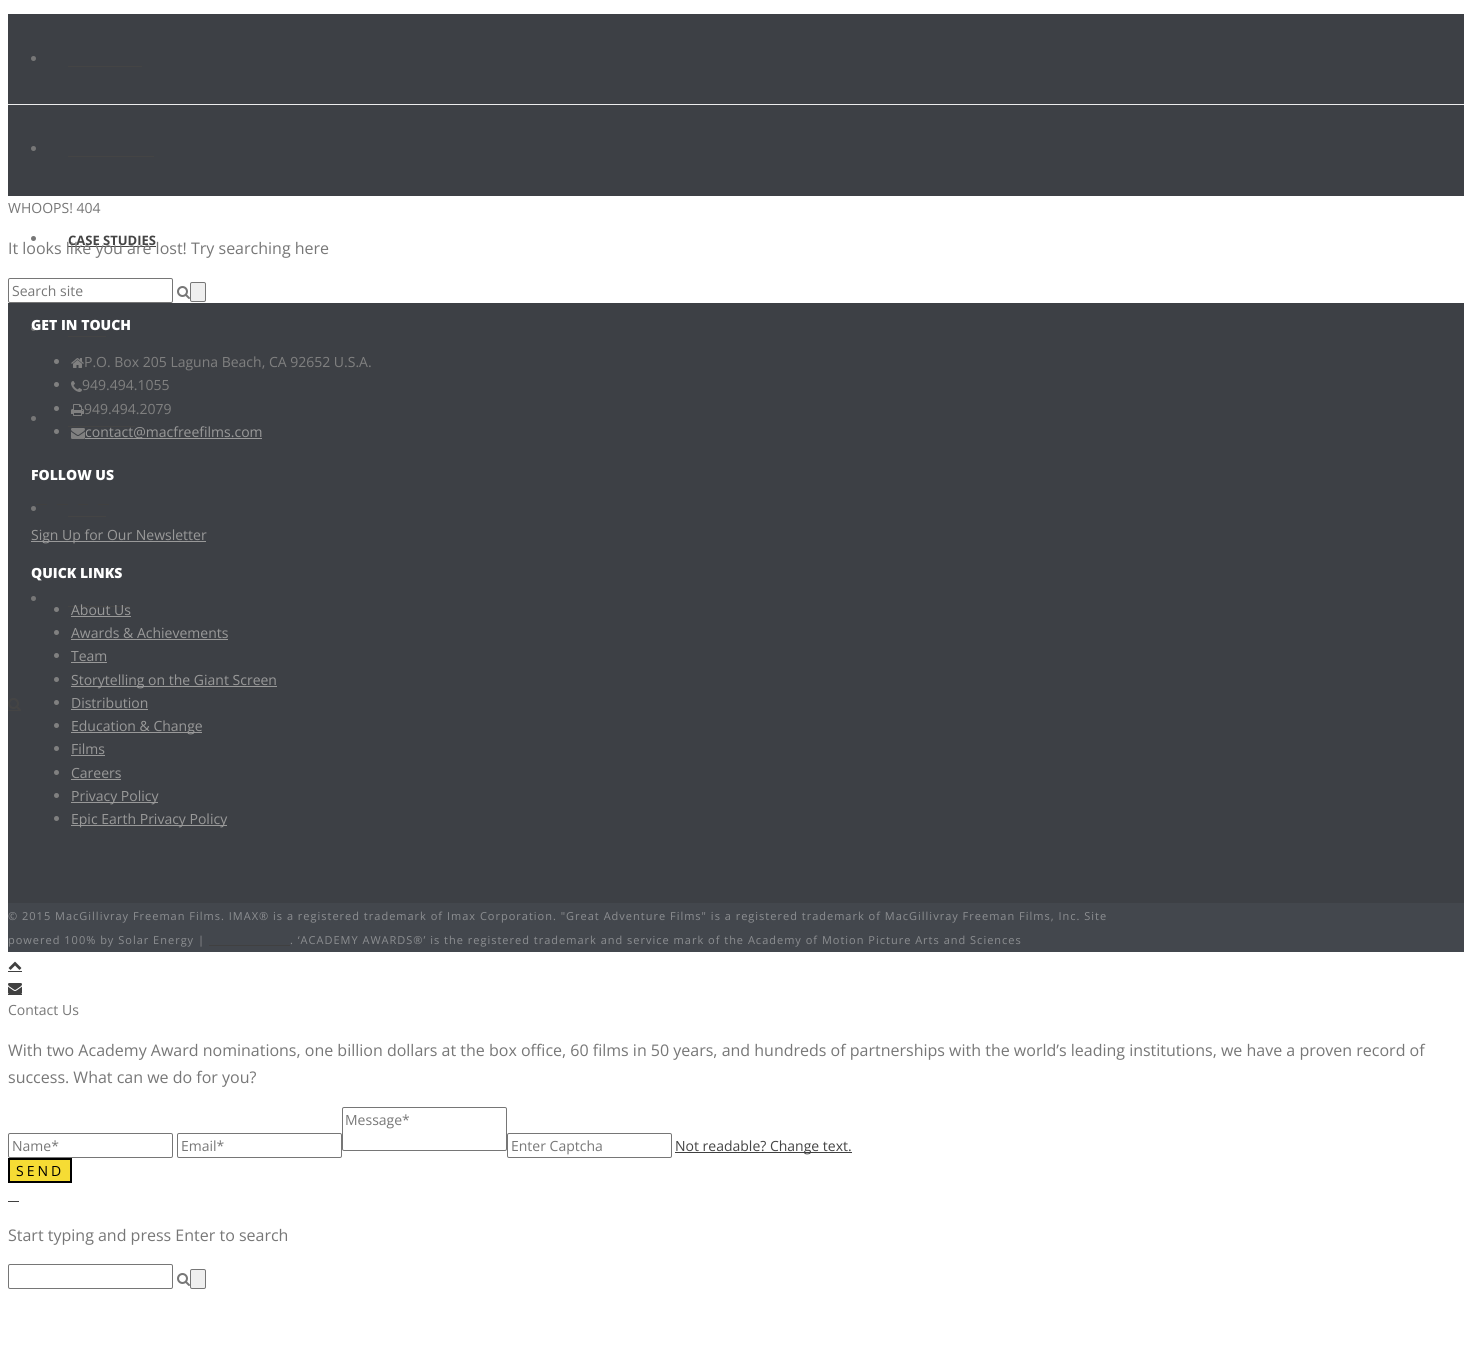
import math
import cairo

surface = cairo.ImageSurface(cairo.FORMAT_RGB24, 1472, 1361)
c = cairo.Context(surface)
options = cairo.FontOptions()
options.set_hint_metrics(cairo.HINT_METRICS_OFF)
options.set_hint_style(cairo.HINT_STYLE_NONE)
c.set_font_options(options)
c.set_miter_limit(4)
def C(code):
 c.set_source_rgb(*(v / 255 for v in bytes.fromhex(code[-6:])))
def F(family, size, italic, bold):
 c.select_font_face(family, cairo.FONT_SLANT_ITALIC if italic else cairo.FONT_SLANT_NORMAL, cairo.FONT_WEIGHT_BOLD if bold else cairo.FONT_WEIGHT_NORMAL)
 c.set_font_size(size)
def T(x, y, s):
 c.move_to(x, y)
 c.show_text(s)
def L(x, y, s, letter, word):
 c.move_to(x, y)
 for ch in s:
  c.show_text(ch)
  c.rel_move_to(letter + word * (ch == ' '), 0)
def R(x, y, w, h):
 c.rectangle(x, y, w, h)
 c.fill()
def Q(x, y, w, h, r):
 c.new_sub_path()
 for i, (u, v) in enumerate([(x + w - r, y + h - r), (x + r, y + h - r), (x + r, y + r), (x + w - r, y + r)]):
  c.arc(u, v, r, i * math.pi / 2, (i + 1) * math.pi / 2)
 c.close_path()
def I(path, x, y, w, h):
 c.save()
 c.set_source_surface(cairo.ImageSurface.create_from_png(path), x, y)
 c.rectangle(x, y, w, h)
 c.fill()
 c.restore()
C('ffffff')
c.paint()
F('Open Sans',14,0,0)
C('777777')
T(8,213,'WHOOPS! 404')
F('Open Sans',13,0,1)
C('444444')
T(68,245,'CASE STUDIES')
R(68,246,88,1)
F('Open Sans',16,0,0)
C('777777')
T(8,254,'It looks like you are lost! Try searching here')
Q(8.5,278.5,164,24,1.5)
C('767676')
c.set_line_width(1)
c.stroke()
F('Open Sans',14,0,0)
C('777777')
T(12,296,'Search site')
I('1.png',177,286,13,13)
C('efefef')
Q(190.5,282.5,15,19,1.5)
c.fill_preserve()
C('767676')
c.stroke()
C('3d4045')
R(8,14,1456,182)
C('ededed')
R(8,104,1456,1)
C('777777')
c.arc(33.5,58.5,2.5,0,2 * math.pi)
c.fill()
C('444444')
R(68,66,74,1)
C('777777')
c.arc(33.5,148.5,2.5,0,2 * math.pi)
c.fill()
C('444444')
R(68,156,86,1)
C('777777')
c.arc(33.5,238.5,2.5,0,2 * math.pi)
c.fill()
C('3d4045')
R(8,303,1456,600)
C('777777')
c.arc(33.5,328.5,2.5,0,2 * math.pi)
c.fill()
C('444444')
R(68,336,38,1)
C('777777')
c.arc(33.5,418.5,2.5,0,2 * math.pi)
c.fill()
C('444444')
R(68,426,67,1)
C('777777')
c.arc(33.5,508.5,2.5,0,2 * math.pi)
c.fill()
C('444444')
R(68,516,38,1)
C('777777')
c.arc(33.5,598.5,2.5,0,2 * math.pi)
c.fill()
C('444444')
R(68,606,62,1)
R(8,710,13,1)
I('2.png',8,698,13,12)
F('Open Sans ExtraBold',14,0,0)
C('ffffff')
T(31,330,'GET IN TOUCH')
C('808080')
c.new_path()
c.arc(56.5,361.5,2.5,0,2 * math.pi)
c.fill()
I('3.png',71,358,13,10)
F('Open Sans',14,0,0)
T(84,367,'P.O. Box 205 Laguna Beach, CA 92652 U.S.A.')
c.new_path()
c.arc(56.5,384.5,2.5,0,2 * math.pi)
c.fill()
I('4.png',71,381,11,11)
T(82,390,'949.494.1055')
c.new_path()
c.arc(56.5,408.5,2.5,0,2 * math.pi)
c.fill()
I('5.png',71,404,13,12)
T(84,414,'949.494.2079')
c.new_path()
c.arc(56.5,431.5,2.5,0,2 * math.pi)
c.fill()
I('6.png',71,428,14,11)
C('999999')
R(85,438,177,1)
T(85,437,'contact@macfreefilms.com')
F('Open Sans ExtraBold',14,0,0)
C('ffffff')
T(31,480,'FOLLOW US')
C('404040')
R(36,504,11,1)
R(57,504,11,1)
R(78,504,10,1)
R(98,504,11,1)
C('999999')
R(31,541,175,1)
F('Open Sans',14,0,0)
T(31,540,'Sign Up for Our Newsletter')
F('Open Sans ExtraBold',14,0,0)
C('ffffff')
T(31,578,'QUICK LINKS')
C('808080')
c.new_path()
c.arc(56.5,609.5,2.5,0,2 * math.pi)
c.fill()
F('Open Sans',14,0,0)
C('999999')
T(71,615,'About Us')
R(71,616,60,1)
C('808080')
c.new_path()
c.arc(56.5,632.5,2.5,0,2 * math.pi)
c.fill()
C('999999')
T(71,638,'Awards & Achievements')
R(71,639,157,1)
C('808080')
c.new_path()
c.arc(56.5,655.5,2.5,0,2 * math.pi)
c.fill()
C('999999')
T(71,661,'Team')
R(71,662,36,1)
C('808080')
c.new_path()
c.arc(56.5,679.5,2.5,0,2 * math.pi)
c.fill()
C('999999')
R(71,686,206,1)
T(71,685,'Storytelling on the Giant Screen')
C('808080')
c.new_path()
c.arc(56.5,702.5,2.5,0,2 * math.pi)
c.fill()
C('999999')
T(71,708,'Distribution')
R(71,709,77,1)
C('808080')
c.new_path()
c.arc(56.5,725.5,2.5,0,2 * math.pi)
c.fill()
C('999999')
R(71,732,131,1)
T(71,731,'Education & Change')
C('808080')
c.new_path()
c.arc(56.5,748.5,2.5,0,2 * math.pi)
c.fill()
C('999999')
T(71,754,'Films')
R(71,755,34,1)
C('808080')
c.new_path()
c.arc(56.5,772.5,2.5,0,2 * math.pi)
c.fill()
C('999999')
T(71,778,'Careers')
R(71,779,50,1)
C('808080')
c.new_path()
c.arc(56.5,795.5,2.5,0,2 * math.pi)
c.fill()
C('999999')
R(71,802,87,1)
T(71,801,'Privacy Policy')
C('808080')
c.new_path()
c.arc(56.5,818.5,2.5,0,2 * math.pi)
c.fill()
C('999999')
R(71,825,156,1)
T(71,824,'Epic Earth Privacy Policy')
C('43474d')
R(8,903,1456,49)
F('Open Sans',11,0,0)
C('8c8e91')
L(8,920,'© 2015 MacGillivray Freeman Films. IMAX® is a registered trademark of Imax Corporation. "Great Adventure Films" is a registered trademark of MacGillivray Freeman Films, Inc. Site',1,0)
L(8,944,'powered 100% by Solar Energy |',1,0)
L(290,944,'. ‘ACADEMY AWARDS®’ is the registered trademark and service mark of the Academy of Motion Picture Arts and Sciences',1,0)
C('404040')
R(209,945,81,1)
R(8,971,14,1)
I('7.png',8,961,14,9)
R(8,994,14,1)
I('8.png',8,983,14,11)
F('Open Sans',14,0,0)
C('777777')
T(8,1015,'Contact Us')
F('Open Sans',16,0,0)
T(8,1056,'With two Academy Award nominations, one billion dollars at the box office, 60 films in 50 years, and hundreds of partnerships with the world’s leading institutions, we have a proven record of')
T(8,1083,'success. What can we do for you?')
Q(342.5,1107.5,164,43,1.5)
C('767676')
c.stroke()
F('Open Sans',14,0,0)
C('777777')
T(345,1125,'Message*')
Q(8.5,1133.5,164,24,1.5)
C('767676')
c.stroke()
C('777777')
T(12,1151,'Name*')
Q(177.5,1133.5,164,24,1.5)
C('767676')
c.stroke()
C('777777')
T(181,1151,'Email*')
Q(507.5,1133.5,164,24,1.5)
C('767676')
c.stroke()
C('777777')
T(511,1151,'Enter Captcha')
C('404040')
R(675,1152,177,1)
C('444444')
T(675,1151,'Not readable? Change text.')
C('f6dc34')
c.rectangle(9,1159,62,23)
c.fill_preserve()
C('000000')
c.set_line_width(2)
c.stroke()
L(16,1176,'SEND',3,0)
C('404040')
R(8,1201,11,1)
F('Open Sans',16,0,0)
C('777777')
T(8,1241,'Start typing and press Enter to search')
Q(8.5,1264.5,164,24,1.5)
C('767676')
c.set_line_width(1)
c.stroke()
I('1.png',177,1273,13,13)
C('efefef')
Q(190.5,1269.5,15,19,1.5)
c.fill_preserve()
C('767676')
c.stroke()
surface.write_to_png('o.png')
